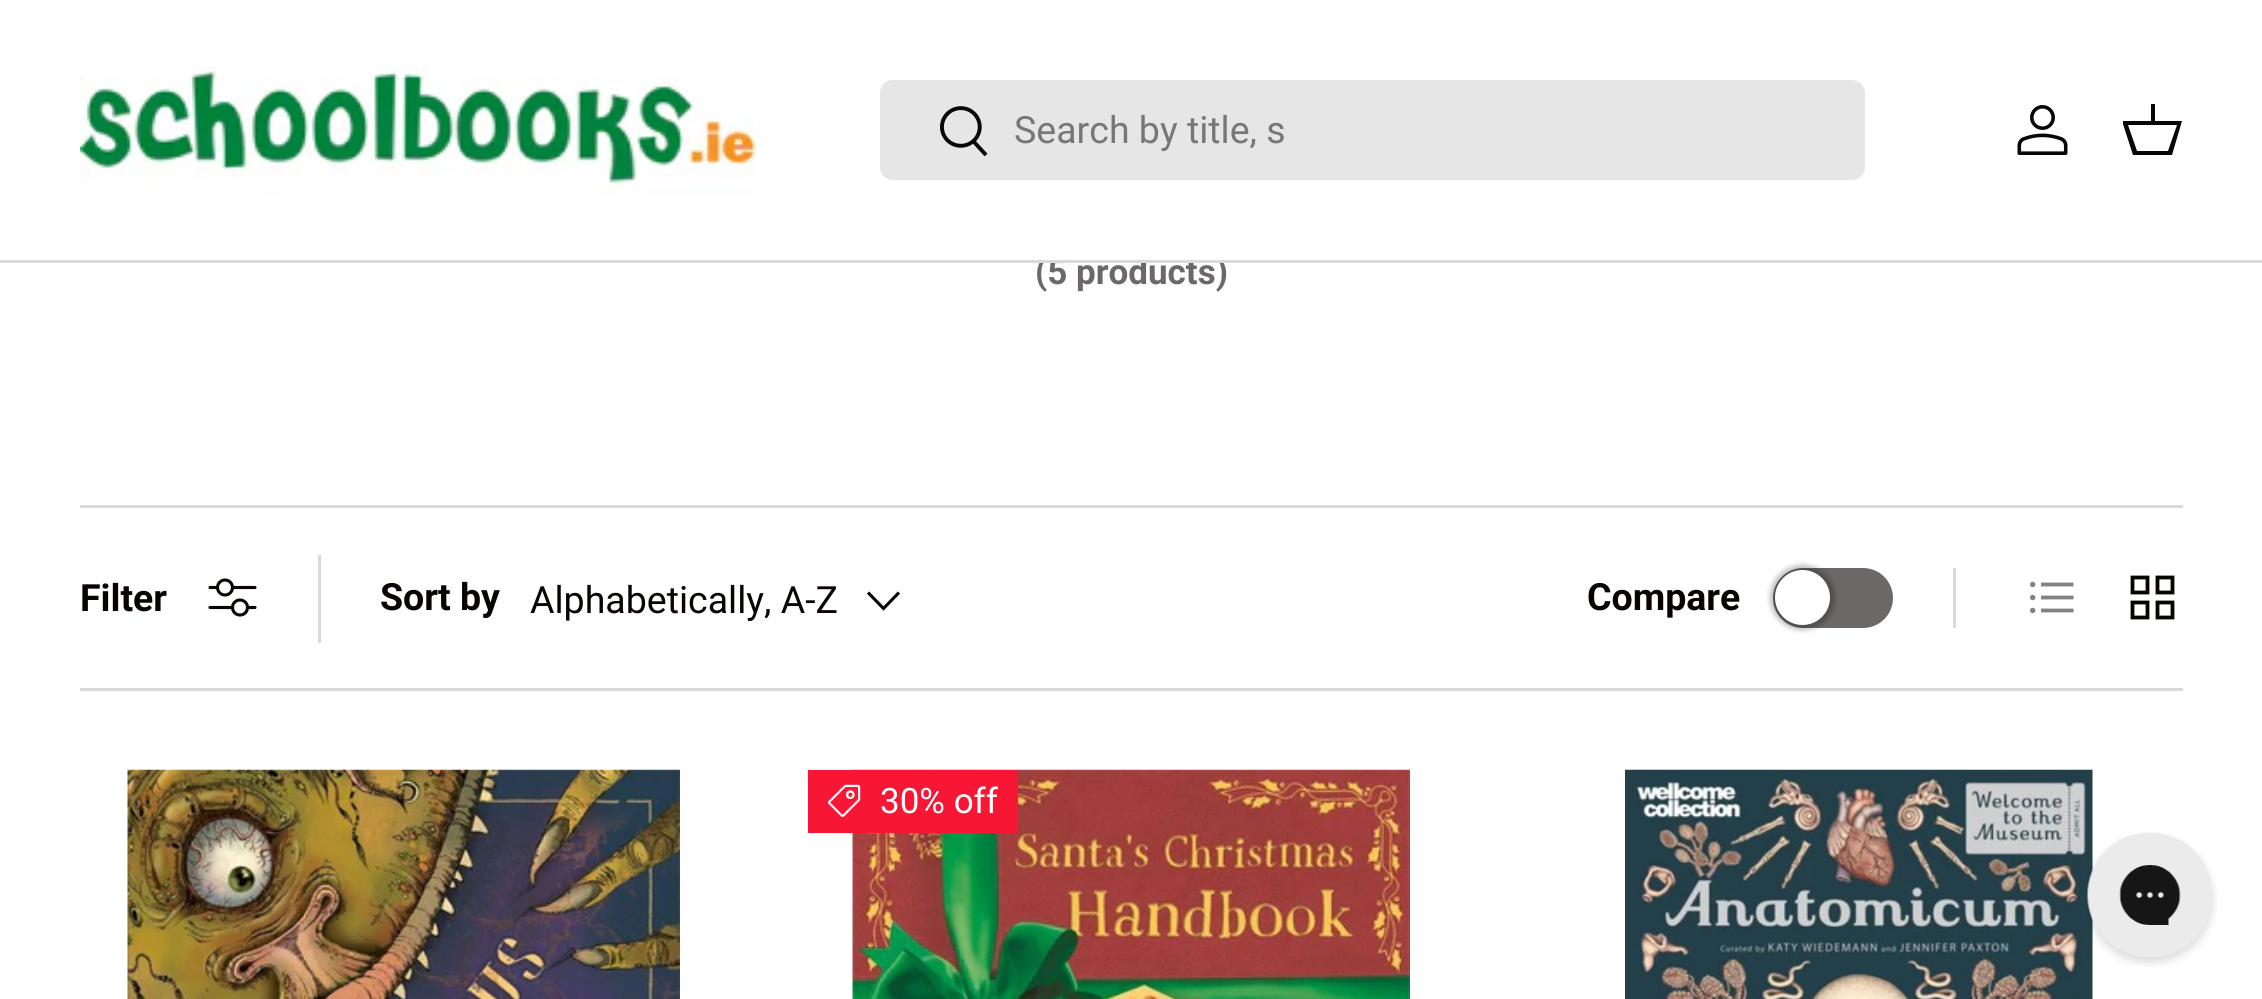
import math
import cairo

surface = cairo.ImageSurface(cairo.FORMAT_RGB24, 2262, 999)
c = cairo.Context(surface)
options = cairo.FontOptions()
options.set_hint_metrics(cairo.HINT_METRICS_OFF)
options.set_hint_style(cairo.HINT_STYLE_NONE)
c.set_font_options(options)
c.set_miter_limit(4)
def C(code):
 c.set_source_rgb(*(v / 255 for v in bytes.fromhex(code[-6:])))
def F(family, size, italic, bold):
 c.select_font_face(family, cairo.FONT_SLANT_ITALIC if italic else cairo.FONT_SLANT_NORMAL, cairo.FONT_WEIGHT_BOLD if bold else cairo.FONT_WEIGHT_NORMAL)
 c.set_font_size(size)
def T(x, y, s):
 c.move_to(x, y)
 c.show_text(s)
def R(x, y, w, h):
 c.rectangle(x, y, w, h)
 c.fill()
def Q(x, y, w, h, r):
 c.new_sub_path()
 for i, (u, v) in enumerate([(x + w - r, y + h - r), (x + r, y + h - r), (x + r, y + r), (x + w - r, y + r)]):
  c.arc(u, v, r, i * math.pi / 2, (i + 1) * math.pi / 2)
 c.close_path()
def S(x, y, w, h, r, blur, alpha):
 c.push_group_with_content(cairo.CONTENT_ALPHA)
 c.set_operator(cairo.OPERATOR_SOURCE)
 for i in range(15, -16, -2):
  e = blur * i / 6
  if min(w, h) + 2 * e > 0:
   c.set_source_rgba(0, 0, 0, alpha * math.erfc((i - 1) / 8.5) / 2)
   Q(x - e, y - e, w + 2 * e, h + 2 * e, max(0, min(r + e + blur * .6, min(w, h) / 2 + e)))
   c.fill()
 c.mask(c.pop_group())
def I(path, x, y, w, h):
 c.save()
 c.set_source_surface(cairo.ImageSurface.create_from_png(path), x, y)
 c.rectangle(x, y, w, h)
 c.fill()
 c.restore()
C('ffffff')
c.paint()
F('Roboto',35,0,1)
C('6b6867')
T(1035,284,'(5 products)')
C('ffffff')
R(1041,256,181,4)
C('dadada')
R(0,260,2262,3)
I('1.png',80,67,675,130)
C('e6e6e6')
Q(880,80,985,100,13)
c.fill()
I('2.png',940,106,48,51)
F('Roboto',37.5,0,0)
C('777777')
T(1014,143,'Search by title, s')
I('3.png',2017,105,51,50)
c.save()
c.rectangle(2123,100,60,60)
c.clip()
C('070707')
c.new_path()
c.move_to(2151,121)
c.line_to(2151,104)
c.line_to(2155,104)
c.line_to(2155,121)
c.line_to(2182,121)
c.line_to(2172,155)
c.line_to(2133,155)
c.line_to(2122,121)
c.close_path()
c.move_to(2128,125)
c.line_to(2137,151)
c.line_to(2168,151)
c.line_to(2177,125)
c.close_path()
c.fill()
c.restore()
C('dad9d9')
R(80,505,2103,3)
R(80,688,2103,3)
F('Roboto',37.5,0,1)
C('090302')
T(80,611,'Filter')
c.new_path()
c.move_to(210,587.5)
c.line_to(255,587.5)
c.move_to(210,607.5)
c.line_to(255,607.5)
c.set_line_width(3.1)
c.set_line_cap(cairo.LINE_CAP_ROUND)
c.set_line_join(cairo.LINE_JOIN_ROUND)
c.stroke()
C('ffffff')
c.arc(225,587.5,7.5,0,2 * math.pi)
c.fill_preserve()
C('090302')
c.set_line_cap(cairo.LINE_CAP_BUTT)
c.set_line_join(cairo.LINE_JOIN_MITER)
c.stroke()
C('ffffff')
c.arc(240,607.5,7.5,0,2 * math.pi)
c.fill_preserve()
C('090302')
c.stroke()
C('dad9d9')
R(318,555,3,88)
C('090302')
T(380,610,'Sort by')
F('Roboto',37.5,0,0)
T(530,613,'Alphabetically, A-Z')
c.new_path()
c.move_to(899,592.5)
c.line_to(883.5,608.5)
c.line_to(868,592.5)
c.stroke()
C('6b6867')
Q(1773,568,120,60,30)
c.fill()
C('000000')
S(1770,565,65,65,32.5,2.5,.25)
C('ffffff')
c.arc(1802.5,597.5,27.5,0,2 * math.pi)
c.fill()
F('Roboto',37.5,0,1)
C('090302')
T(1587,610,'Compare')
C('dad9d9')
R(1953,568,3,60)
C('848181')
c.new_path()
c.arc(2032.7,584.5,2.7,0,2 * math.pi)
c.fill()
c.new_path()
c.move_to(2041,584.5)
c.line_to(2073.5,584.5)
c.set_line_width(3.8)
c.stroke()
c.arc(2032.7,597.5,2.7,0,2 * math.pi)
c.fill()
c.new_path()
c.move_to(2041,597.5)
c.line_to(2073.5,597.5)
c.stroke()
c.arc(2032.7,610.5,2.7,0,2 * math.pi)
c.fill()
c.new_path()
c.move_to(2041,610.5)
c.line_to(2073.5,610.5)
c.stroke()
c.new_path()
c.move_to(2132.5,577.5)
c.line_to(2147.5,577.5)
c.line_to(2147.5,592.5)
c.line_to(2132.5,592.5)
c.close_path()
c.move_to(2157.5,577.5)
c.line_to(2172.5,577.5)
c.line_to(2172.5,592.5)
c.line_to(2157.5,592.5)
c.close_path()
c.move_to(2132.5,602.5)
c.line_to(2147.5,602.5)
c.line_to(2147.5,617.5)
c.line_to(2132.5,617.5)
c.close_path()
c.move_to(2157.5,602.5)
c.line_to(2172.5,602.5)
c.line_to(2172.5,617.5)
c.line_to(2157.5,617.5)
c.close_path()
C('090302')
c.stroke()
I('4.png',127,769,553,230)
I('5.png',852,769,558,230)
C('f71735')
R(808,770,210,63)
I('6.png',828,784,33,33)
F('Roboto',35,0,0)
C('ffffff')
T(880,813,'30% off')
I('7.png',1625,769,468,230)
I('8.png',2087,832,130,135)
surface.write_to_png('o.png')
